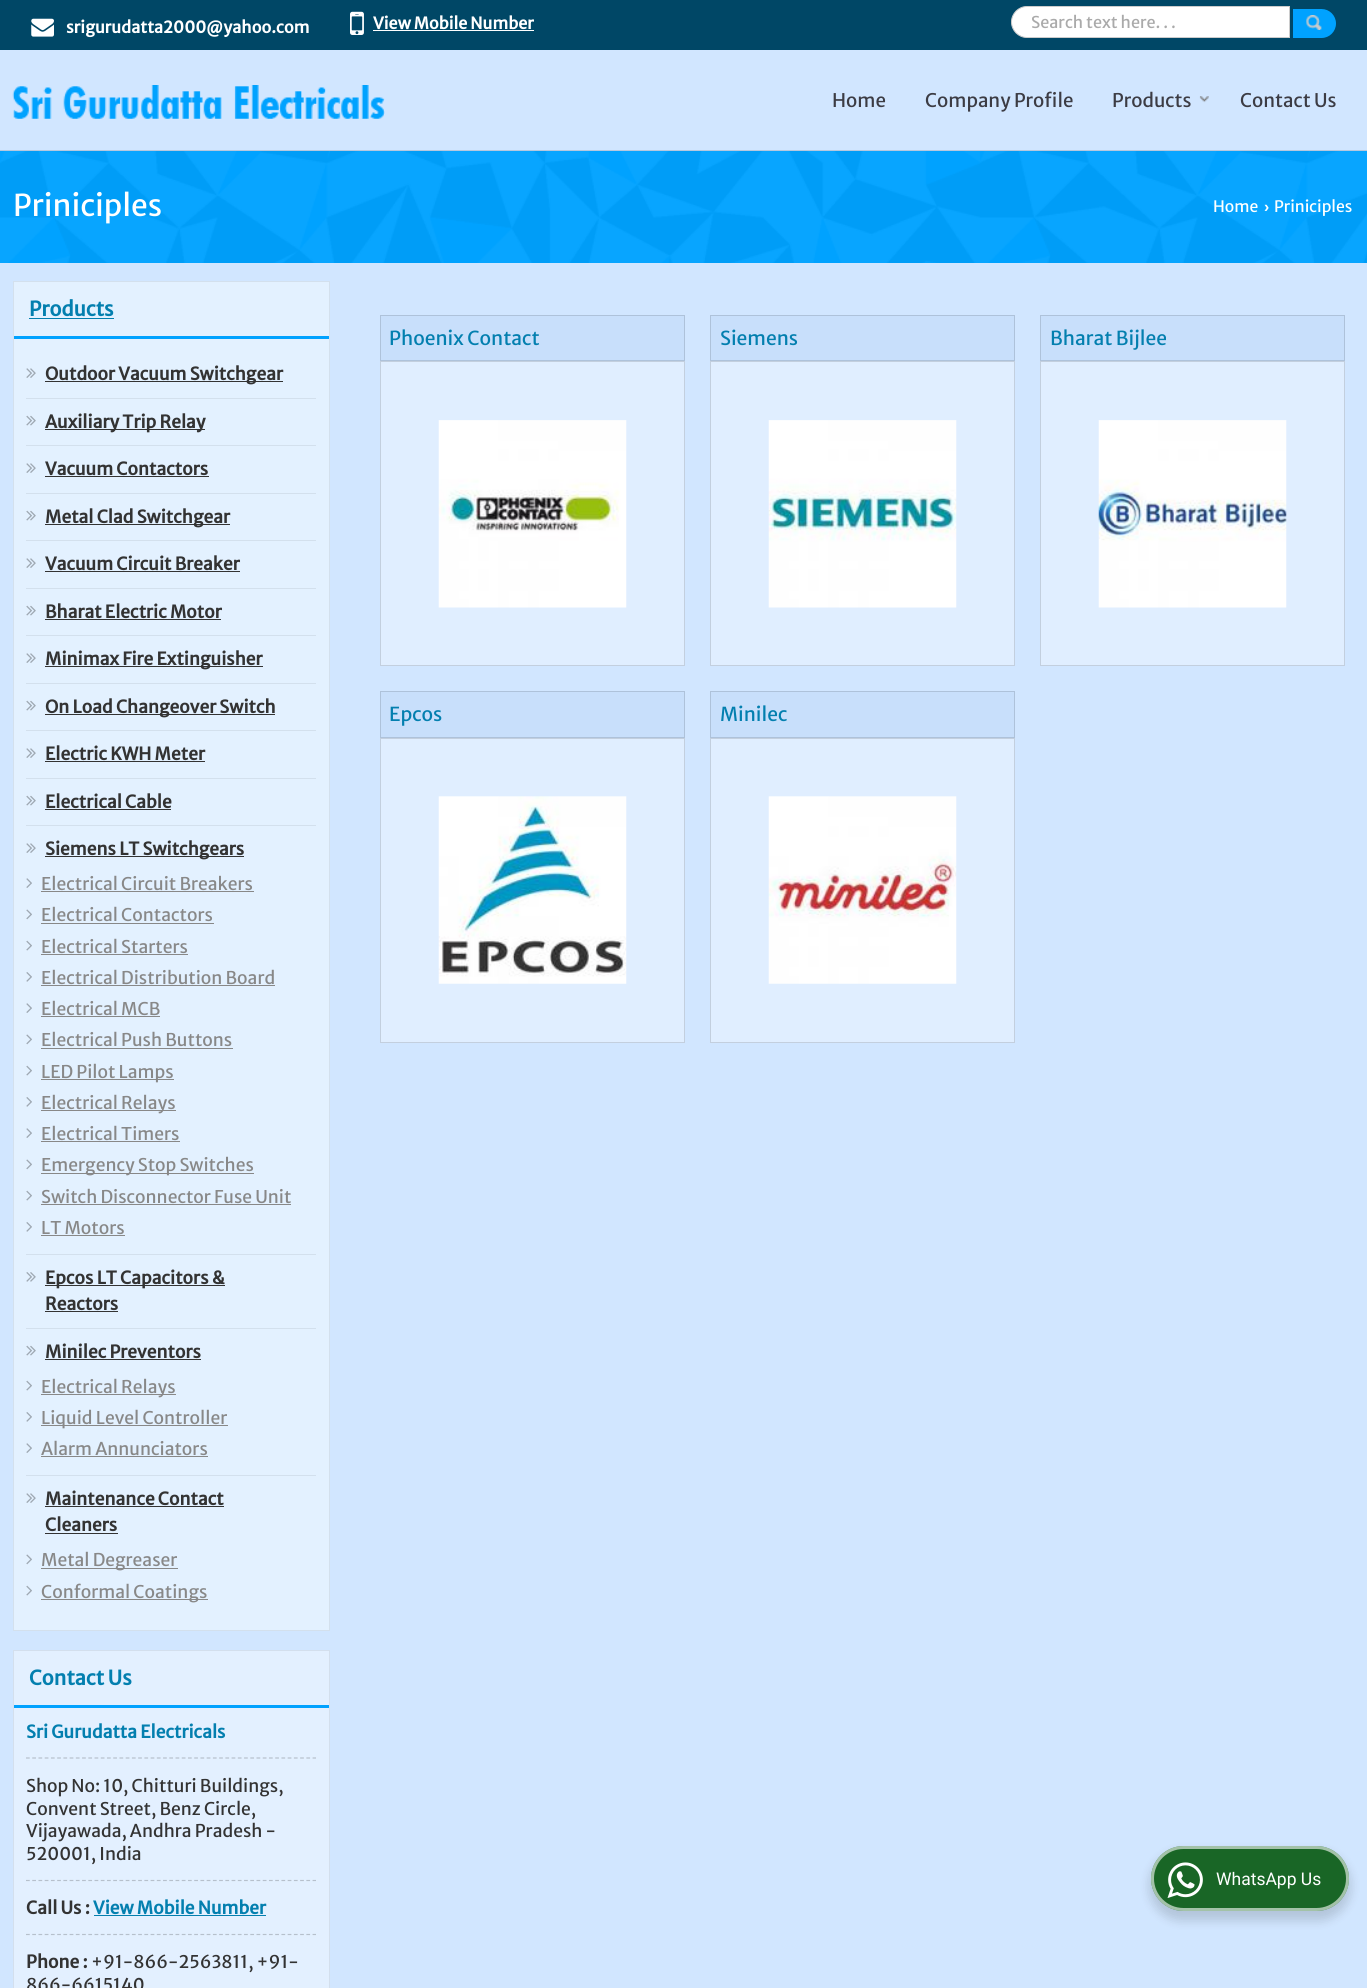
import math
import cairo

surface = cairo.ImageSurface(cairo.FORMAT_RGB24, 1367, 1988)
c = cairo.Context(surface)
options = cairo.FontOptions()
options.set_hint_metrics(cairo.HINT_METRICS_OFF)
options.set_hint_style(cairo.HINT_STYLE_NONE)
c.set_font_options(options)
c.set_miter_limit(4)
def C(code):
 c.set_source_rgb(*(v / 255 for v in bytes.fromhex(code[-6:])))
def F(family, size, italic, bold):
 c.select_font_face(family, cairo.FONT_SLANT_ITALIC if italic else cairo.FONT_SLANT_NORMAL, cairo.FONT_WEIGHT_BOLD if bold else cairo.FONT_WEIGHT_NORMAL)
 c.set_font_size(size)
def T(x, y, s):
 c.move_to(x, y)
 c.show_text(s)
def R(x, y, w, h):
 c.rectangle(x, y, w, h)
 c.fill()
def Q(x, y, w, h, r):
 c.new_sub_path()
 for i, (u, v) in enumerate([(x + w - r, y + h - r), (x + r, y + h - r), (x + r, y + r), (x + w - r, y + r)]):
  c.arc(u, v, r, i * math.pi / 2, (i + 1) * math.pi / 2)
 c.close_path()
def S(x, y, w, h, r, blur, alpha):
 c.push_group_with_content(cairo.CONTENT_ALPHA)
 c.set_operator(cairo.OPERATOR_SOURCE)
 for i in range(15, -16, -2):
  e = blur * i / 6
  if min(w, h) + 2 * e > 0:
   c.set_source_rgba(0, 0, 0, alpha * math.erfc((i - 1) / 8.5) / 2)
   Q(x - e, y - e, w + 2 * e, h + 2 * e, max(0, min(r + e + blur * .6, min(w, h) / 2 + e)))
   c.fill()
 c.mask(c.pop_group())
def I(path, x, y, w, h):
 c.save()
 c.set_source_surface(cairo.ImageSurface.create_from_png(path), x, y)
 c.rectangle(x, y, w, h)
 c.fill()
 c.restore()
C('d1e6ff')
c.paint()
C('004766')
R(0,0,1367,50)
I('1.png',31,18,23,19)
F('Merriweather Sans',16.25,0,1)
C('ffffff')
T(66,33,'srigurudatta2000@yahoo.com')
I('2.png',350,11,14,24)
T(373,29,'View Mobile Number')
R(373,30,161,1)
c.new_path()
c.move_to(1027,6.5)
c.line_to(1289.5,6.5)
c.line_to(1289.5,37.5)
c.line_to(1027,37.5)
c.curve_to(1018.5,37.5,1011.5,30.5,1011.5,22)
c.curve_to(1011.5,13.5,1018.5,6.5,1027,6.5)
c.close_path()
c.fill_preserve()
C('cccccc')
c.set_line_width(1)
c.stroke()
F('Merriweather Sans',16.25,0,0)
C('aaaaaa')
T(1031,28,'Search text here. . .')
C('00a2ff')
c.new_path()
c.move_to(1293,9)
c.line_to(1321.5,9)
c.curve_to(1329.5,9,1336,15.5,1336,23.5)
c.curve_to(1336,31.5,1329.5,38,1321.5,38)
c.line_to(1293,38)
c.close_path()
c.fill()
I('3.png',1306,15,16,15)
C('b6c8de')
R(0,150,1367,1)
I('4.png',12,85,373,34)
F('Merriweather Sans',18.75,0,0)
C('3c3c44')
T(832,107,'Home')
T(925,107,'Company Profile')
T(1112,107,'Products')
I('5.png',1199,96,10,7)
T(1240,107,'Contact Us')
C('00a2ff')
R(0,151,1367,112)
I('6.png',0,151,1367,112)
F('Merriweather Sans',30,0,0)
C('ffffff')
T(13,216,'Priniciples')
F('Merriweather Sans',15.75,0,0)
T(1213,212,'Home')
F('Liberation Sans',15.75,0,1)
T(1264,212,'›')
F('Merriweather Sans',15.75,0,0)
T(1274,212,'Priniciples')
C('e3f1ff')
c.rectangle(13.5,281.5,316,1349)
c.fill_preserve()
C('d3e0ed')
c.stroke()
C('00a2ff')
R(14,336,315,3)
F('Merriweather Sans',20,0,1)
C('037faf')
T(29,316,'Products')
R(29,318,85,1)
C('d3e0ed')
R(26,398,290,1)
I('7.png',26,368,10,10)
C('333333')
R(45,381,238,1)
F('Merriweather Sans',17.5,0,1)
T(45,380,'Outdoor Vacuum Switchgear')
C('d3e0ed')
R(26,445,290,1)
I('8.png',26,415,10,11)
C('333333')
R(45,429,160,1)
T(45,428,'Auxiliary Trip Relay')
C('d3e0ed')
R(26,493,290,1)
I('7.png',26,463,10,10)
C('333333')
T(45,475,'Vacuum Contactors')
R(45,476,164,1)
C('d3e0ed')
R(26,540,290,1)
I('8.png',26,510,10,11)
C('333333')
R(45,524,185,1)
T(45,523,'Metal Clad Switchgear')
C('d3e0ed')
R(26,588,290,1)
I('7.png',26,558,10,10)
C('333333')
T(45,570,'Vacuum Circuit Breaker')
R(45,571,195,1)
C('d3e0ed')
R(26,635,290,1)
I('8.png',26,605,10,11)
C('333333')
T(45,618,'Bharat Electric Motor')
R(45,619,176,1)
C('d3e0ed')
R(26,683,290,1)
I('7.png',26,653,10,10)
C('333333')
R(45,666,218,1)
T(45,665,'Minimax Fire Extinguisher')
C('d3e0ed')
R(26,730,290,1)
I('8.png',26,700,10,11)
C('333333')
R(45,714,230,1)
T(45,713,'On Load Changeover Switch')
C('d3e0ed')
R(26,778,290,1)
I('7.png',26,748,10,10)
C('333333')
T(45,760,'Electric KWH Meter')
R(45,761,160,1)
C('d3e0ed')
R(26,825,290,1)
I('8.png',26,795,10,11)
C('333333')
T(45,808,'Electrical Cable')
R(45,809,126,1)
C('d3e0ed')
R(26,1254,290,1)
I('7.png',26,843,10,10)
C('333333')
R(45,856,199,1)
T(45,855,'Siemens LT Switchgears')
I('9.png',26,878,6,10)
F('Merriweather Sans',17.5,0,0)
C('888888')
T(41,890,'Electrical Circuit Breakers')
R(41,891,213,1)
I('10.png',26,909,6,11)
T(41,921,'Electrical Contactors')
R(41,923,173,1)
I('11.png',26,940,6,11)
T(41,953,'Electrical Starters')
R(41,954,147,1)
I('12.png',26,972,6,10)
T(41,984,'Electrical Distribution Board')
R(41,985,234,1)
I('9.png',26,1003,6,10)
T(41,1015,'Electrical MCB')
R(41,1016,119,1)
I('10.png',26,1034,6,11)
T(41,1046,'Electrical Push Buttons')
R(41,1048,192,1)
I('11.png',26,1065,6,11)
R(41,1079,133,1)
T(41,1078,'LED Pilot Lamps')
I('12.png',26,1097,6,10)
R(41,1110,135,1)
T(41,1109,'Electrical Relays')
I('9.png',26,1128,6,10)
T(41,1140,'Electrical Timers')
R(41,1141,139,1)
I('10.png',26,1159,6,11)
R(41,1173,213,1)
T(41,1171,'Emergency Stop Switches')
I('11.png',26,1190,6,11)
T(41,1203,'Switch Disconnector Fuse Unit')
R(41,1204,250,1)
I('12.png',26,1222,6,10)
T(41,1234,'LT Motors')
R(41,1235,84,1)
C('d3e0ed')
R(26,1328,290,1)
I('13.png',26,1272,10,10)
C('333333')
R(45,1285,180,1)
F('Merriweather Sans',17.5,0,1)
T(45,1284,'Epcos LT Capacitors &')
T(45,1310,'Reactors')
R(45,1311,73,1)
C('d3e0ed')
R(26,1475,290,1)
I('8.png',26,1345,10,11)
C('333333')
T(45,1358,'Minilec Preventors')
R(45,1359,156,1)
I('11.png',26,1380,6,11)
C('888888')
R(41,1394,135,1)
F('Merriweather Sans',17.5,0,0)
T(41,1393,'Electrical Relays')
I('12.png',26,1412,6,10)
R(41,1425,187,1)
T(41,1424,'Liquid Level Controller')
I('9.png',26,1443,6,10)
T(41,1455,'Alarm Annunciators')
R(41,1456,167,1)
I('7.png',26,1493,10,10)
F('Merriweather Sans',17.5,0,1)
C('333333')
T(45,1505,'Maintenance Contact')
R(45,1506,179,1)
T(45,1531,'Cleaners')
R(45,1533,73,1)
I('10.png',26,1554,6,11)
C('888888')
R(41,1568,137,1)
F('Merriweather Sans',17.5,0,0)
T(41,1566,'Metal Degreaser')
I('11.png',26,1585,6,11)
R(41,1599,167,1)
T(41,1598,'Conformal Coatings')
C('e3f0ff')
c.rectangle(13.5,1650.5,316,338)
c.fill_preserve()
C('d3dfed')
c.stroke()
C('00a2ff')
R(14,1705,315,3)
F('Merriweather Sans',20,0,1)
C('037faf')
T(29,1685,'Contact Us')
F('Merriweather Sans',17.5,0,1)
T(26,1738,'Sri Gurudatta Electricals')
c.new_path()
c.move_to(26,1758)
c.line_to(316,1758)
C('b6c0cc')
c.set_line_width(1.2)
c.set_dash([3.75,2.48])
c.stroke()
F('Merriweather Sans',17.5,0,0)
C('333333')
T(26,1792,'Shop No: 10, Chitturi Buildings,')
T(26,1815,'Convent Street, Benz Circle,')
T(26,1837,'Vijayawada, Andhra Pradesh -')
T(26,1860,'520001, India')
c.new_path()
c.move_to(26,1880.5)
c.line_to(316,1880.5)
C('b6c0cc')
c.stroke()
F('Merriweather Sans',17.5,0,1)
C('333333')
T(26,1914,'Call Us :')
C('037faf')
T(93,1914,'View Mobile Number')
R(94,1915,172,1)
c.new_path()
c.move_to(26,1934.5)
c.line_to(316,1934.5)
C('b6c0cc')
c.stroke()
C('333333')
T(26,1968,'Phone :')
F('Merriweather Sans',17.5,0,0)
T(91,1968,'+91-866-2563811, +91-')
T(26,1991,'866-6615140')
C('c8dffb')
c.rectangle(380.5,315.5,304,45)
c.fill_preserve()
C('aec2da')
c.set_line_width(1)
c.set_dash([])
c.stroke()
F('Merriweather Sans',19.25,0,0)
C('037faf')
T(389,345,'Phoenix Contact')
C('e0eeff')
c.rectangle(380.5,361.5,304,304)
c.fill_preserve()
C('c3cfde')
c.stroke()
I('14.png',438,420,189,188)
C('c8dffb')
c.rectangle(710.5,315.5,304,45)
c.fill_preserve()
C('aec2da')
c.stroke()
C('037faf')
T(720,345,'Siemens')
C('e0eeff')
c.rectangle(710.5,361.5,304,304)
c.fill_preserve()
C('c3cfde')
c.stroke()
I('15.png',768,420,189,188)
C('c8dffb')
c.rectangle(1040.5,315.5,304,45)
c.fill_preserve()
C('aec2da')
c.stroke()
C('037faf')
T(1050,345,'Bharat Bijlee')
C('e0eeff')
c.rectangle(1040.5,361.5,304,304)
c.fill_preserve()
C('c3cfde')
c.stroke()
I('16.png',1098,420,189,188)
C('c8dffb')
c.rectangle(380.5,691.5,304,46)
c.fill_preserve()
C('aec2da')
c.stroke()
C('037faf')
T(389,721,'Epcos')
C('e0eeff')
c.rectangle(380.5,738.5,304,304)
c.fill_preserve()
C('c3cfde')
c.stroke()
I('17.png',438,796,189,188)
C('c8dffb')
c.rectangle(710.5,691.5,304,46)
c.fill_preserve()
C('aec2da')
c.stroke()
C('037faf')
T(720,721,'Minilec')
C('e0eeff')
c.rectangle(710.5,738.5,304,304)
c.fill_preserve()
C('c3cfde')
c.stroke()
I('18.png',768,796,189,188)
C('000000')
S(1149,1851,202,70,35,5,.14)
C('196626')
Q(1151,1846,198,65,32.5)
c.fill()
Q(1152.5,1847.5,195,62,31)
c.set_source_rgba(1,1,1,0.6)
c.set_line_width(3)
c.stroke()
I('19.png',1167,1862,36,36)
F('Roboto',17.5,0,0)
C('ffffff')
T(1216,1885,'WhatsApp Us')
surface.write_to_png('o.png')
